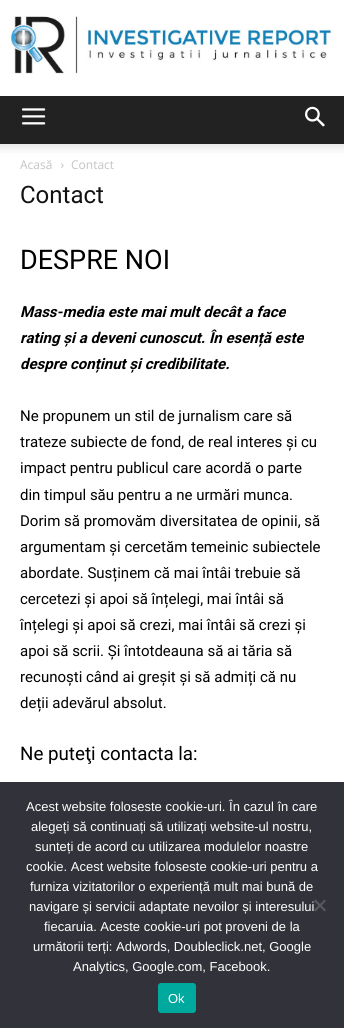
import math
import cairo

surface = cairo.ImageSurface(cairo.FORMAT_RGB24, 344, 1028)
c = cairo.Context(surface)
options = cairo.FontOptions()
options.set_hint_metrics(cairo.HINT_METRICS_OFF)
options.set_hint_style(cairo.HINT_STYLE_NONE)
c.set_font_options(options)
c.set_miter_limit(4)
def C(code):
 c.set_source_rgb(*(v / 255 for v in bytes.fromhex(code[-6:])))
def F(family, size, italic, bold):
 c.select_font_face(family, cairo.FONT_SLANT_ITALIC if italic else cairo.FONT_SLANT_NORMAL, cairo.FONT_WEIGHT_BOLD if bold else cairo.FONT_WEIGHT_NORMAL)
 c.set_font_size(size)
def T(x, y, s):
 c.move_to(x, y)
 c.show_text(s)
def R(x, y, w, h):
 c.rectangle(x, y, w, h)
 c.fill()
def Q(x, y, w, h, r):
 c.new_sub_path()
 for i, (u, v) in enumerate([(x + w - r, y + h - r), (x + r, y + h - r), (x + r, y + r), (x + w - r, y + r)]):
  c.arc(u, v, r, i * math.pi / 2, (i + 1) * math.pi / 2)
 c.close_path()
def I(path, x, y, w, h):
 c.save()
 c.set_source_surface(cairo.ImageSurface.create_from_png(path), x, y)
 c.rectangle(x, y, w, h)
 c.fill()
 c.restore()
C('ffffff')
c.paint()
I('1.png',0,16,344,80)
C('222222')
R(0,96,344,48)
I('2.png',22,108,24,17)
I('3.png',305,106,20,21)
I('4.png',0,144,344,9)
F('Open Sans',12,0,0)
C('c3c3c3')
T(20,169,'Acasă')
I('5.png',61,163,3,5)
T(71,169,'Contact')
F('Roboto',24,0,0)
C('111111')
T(20,203,'Contact')
F('Roboto',27,0,0)
C('000000')
T(20,269,'DESPRE NOI')
F('Roboto',15,1,1)
T(20,317,'Mass-media este mai mult decât a face')
T(20,343,'rating și a deveni cunoscut. În esență este')
T(20,369,'despre conținut și credibilitate.')
F('Roboto',15,0,0)
T(20,421,'Ne propunem un stil de jurnalism care să')
T(20,447,'trateze subiecte de fond, de real interes și cu')
T(20,473,'impact pentru publicul care acordă o parte')
T(20,500,'din timpul său pentru a ne urmări munca.')
T(20,526,'Dorim să promovăm diversitatea de opinii, să')
T(20,552,'argumentam și cercetăm temeinic subiectele')
T(20,578,'abordate. Susținem că mai întâi trebuie să')
T(20,604,'cercetezi și apoi să înțelegi, mai întâi să')
T(20,630,'înțelegi și apoi să crezi, mai întâi să crezi și')
T(20,656,'apoi să scrii. Și întotdeauna să ai tăria să')
T(20,682,'recunoști când ai greșit și să admiți că nu')
T(20,708,'deții adevărul absolut.')
F('Roboto',18.75,0,0)
T(20,760,'Ne puteţi contacta la:')
C('32323a')
R(0,782,344,246)
F('Liberation Sans',13,0,0)
C('ffffff')
T(26,811,'Acest website foloseste cookie-uri. În cazul în care')
T(31,831,'alegeți să continuați să utilizați website-ul nostru,')
T(35,851,'sunteți de acord cu utilizarea modulelor noastre')
T(26,871,'cookie. Acest website foloseste cookie-uri pentru a')
T(30,891,'furniza vizitatorilor o experiență mult mai bună de')
T(29,911,'navigare și servicii adaptate nevoilor și interesului')
T(44,931,'fiecaruia. Aceste cookie-uri pot proveni de la')
T(33,951,'următorii terți: Adwords, Doubleclick.net, Google')
T(73,971,'Analytics, Google.com, Facebook.')
C('59595d')
c.new_path()
c.move_to(324.5,899.5)
c.line_to(326,901)
c.line_to(315.5,911.5)
c.line_to(314,910)
c.close_path()
c.fill()
c.new_path()
c.move_to(314,901)
c.line_to(315.5,899.5)
c.line_to(326,910)
c.line_to(324.5,911.5)
c.close_path()
c.fill()
C('00a99d')
Q(158,983,38,30,3)
c.fill()
C('ffffff')
T(168,1003,'Ok')
surface.write_to_png('o.png')
